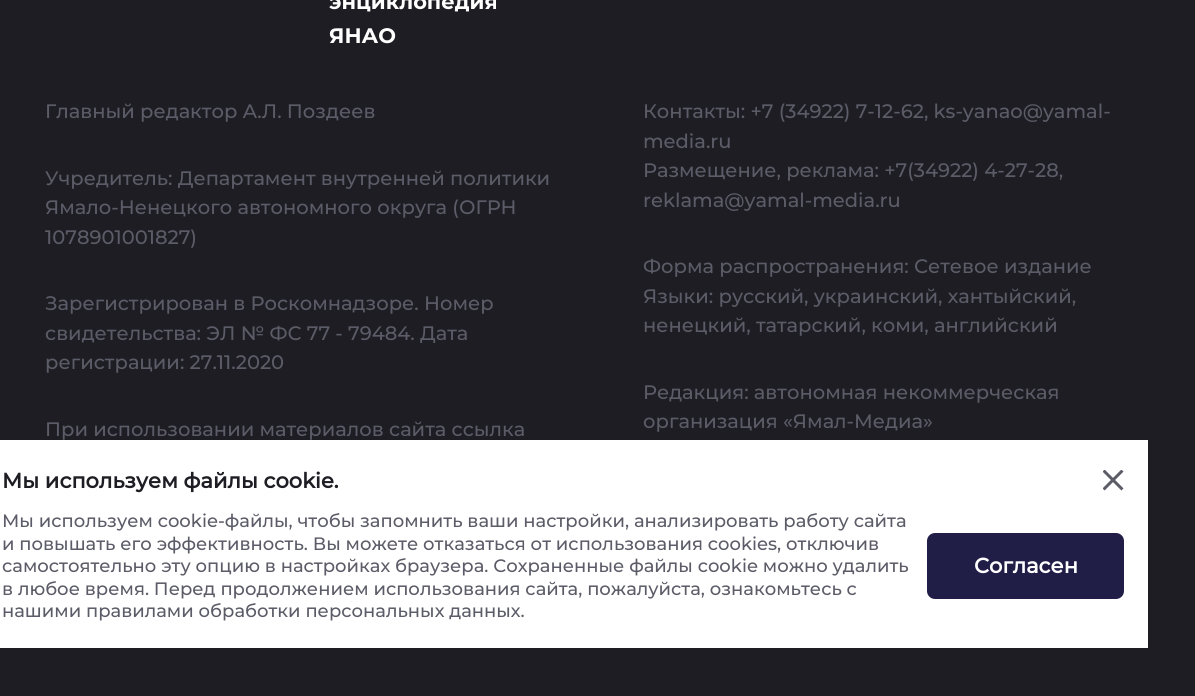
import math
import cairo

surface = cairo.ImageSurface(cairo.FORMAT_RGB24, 1195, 696)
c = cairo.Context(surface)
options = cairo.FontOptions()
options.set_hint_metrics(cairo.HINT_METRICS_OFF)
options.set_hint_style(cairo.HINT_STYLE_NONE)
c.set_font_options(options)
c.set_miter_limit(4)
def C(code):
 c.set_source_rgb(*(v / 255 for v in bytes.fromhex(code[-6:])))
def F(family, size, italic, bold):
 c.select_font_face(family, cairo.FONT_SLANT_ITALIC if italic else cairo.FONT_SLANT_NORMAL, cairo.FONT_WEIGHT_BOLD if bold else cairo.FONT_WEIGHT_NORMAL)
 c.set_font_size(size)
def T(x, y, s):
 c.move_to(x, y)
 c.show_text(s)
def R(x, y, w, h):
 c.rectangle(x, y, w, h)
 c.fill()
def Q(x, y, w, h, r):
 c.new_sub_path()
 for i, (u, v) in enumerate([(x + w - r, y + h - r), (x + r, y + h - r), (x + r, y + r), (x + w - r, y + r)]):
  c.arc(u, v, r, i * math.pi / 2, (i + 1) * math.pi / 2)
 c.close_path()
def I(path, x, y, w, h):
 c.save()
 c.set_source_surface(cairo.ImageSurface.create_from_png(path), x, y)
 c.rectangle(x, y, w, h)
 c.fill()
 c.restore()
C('1d1d23')
c.paint()
F('Montserrat',21,0,1)
C('ffffff')
T(329,9,'энциклопедия')
T(329,43,'ЯНАО')
F('Montserrat Medium',19.5,0,0)
C('5c5c68')
T(45,118,'Главный редактор А.Л. Поздеев')
T(45,185,'Учредитель: Департамент внутренней политики')
T(45,214,'Ямало-Ненецкого автономного округа (ОГРН')
T(45,244,'1078901001827)')
T(45,310,'Зарегистрирован в Роскомнадзоре. Номер')
T(45,340,'свидетельства: ЭЛ № ФС 77 - 79484. Дата')
T(45,369,'регистрации: 27.11.2020')
T(45,436,'При использовании материалов сайта ссылка')
T(643,118,'Контакты: +7 (34922) 7-12-62, ks-yanao@yamal-')
T(643,148,'media.ru')
T(643,177,'Размещение, реклама: +7(34922) 4-27-28,')
T(643,207,'reklama@yamal-media.ru')
T(643,273,'Форма распространения: Сетевое издание')
T(643,303,'Языки: русский, украинский, хантыйский,')
T(643,332,'ненецкий, татарский, коми, английский')
T(643,399,'Редакция: автономная некоммерческая')
T(643,428,'организация «Ямал-Медиа»')
C('ffffff')
R(0,440,1148,208)
F('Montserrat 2',21,0,1)
C('1d1d23')
T(2,488,'Мы используем файлы cookie.')
I('1.png',1103,470,21,21)
F('Montserrat Medium',18,0,0)
C('5c5c68')
T(2,527,'Мы используем cookie-файлы, чтобы запомнить ваши настройки, анализировать работу сайта')
T(2,550,'и повышать его эффективность. Вы можете отказаться от использования cookies, отключив')
T(2,572,'самостоятельно эту опцию в настройках браузера. Сохраненные файлы cookie можно удалить')
T(2,595,'в любое время. Перед продолжением использования сайта, пожалуйста, ознакомьтесь с')
T(2,617,'нашими правилами обработки персональных данных.')
C('201e47')
Q(928,534,195,64,7)
c.fill_preserve()
c.stroke()
F('Montserrat 2',21,0,1)
C('ffffff')
T(974,573,'Согласен')
surface.write_to_png('o.png')
